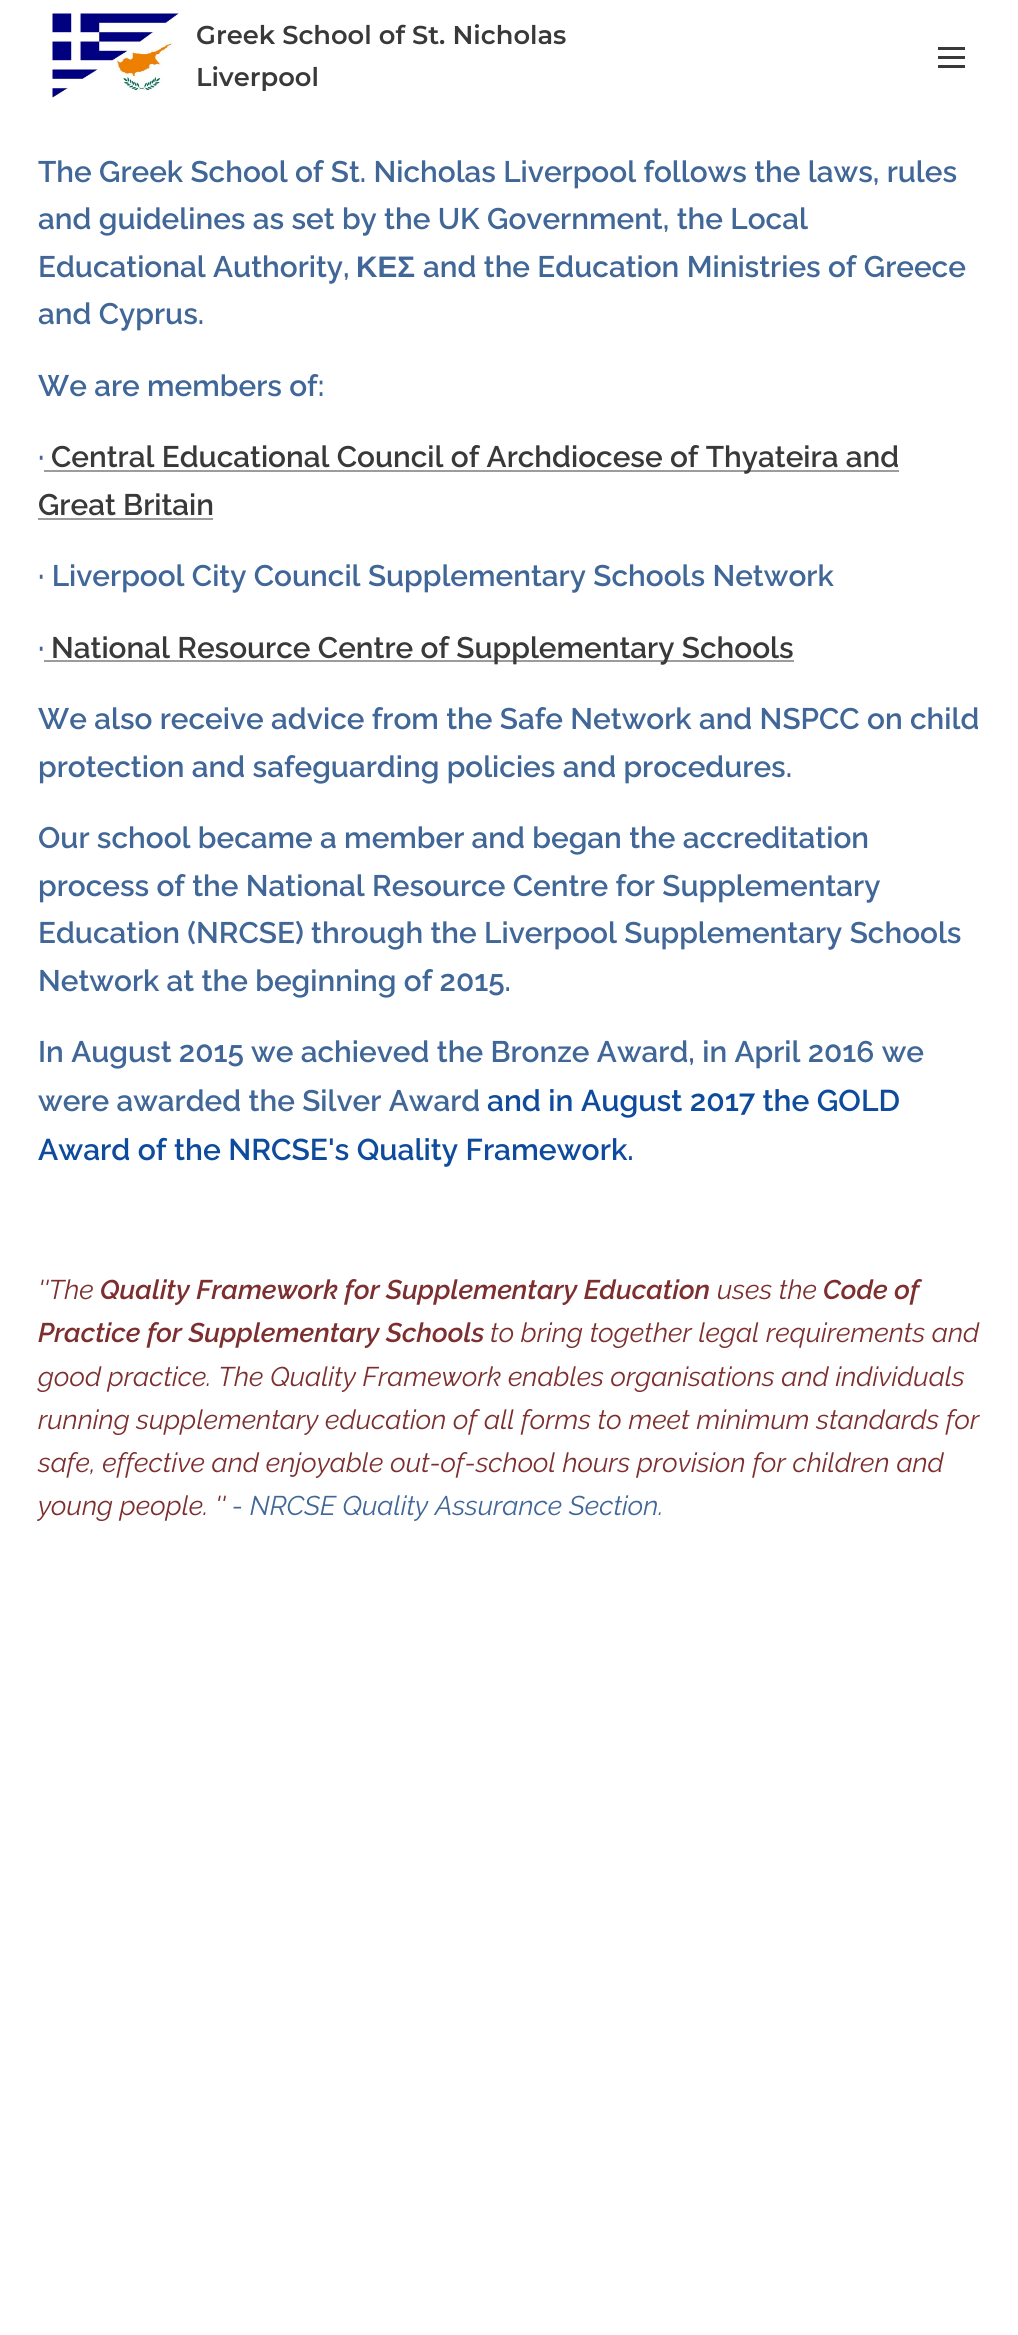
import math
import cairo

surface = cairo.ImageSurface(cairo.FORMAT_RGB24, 1018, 2335)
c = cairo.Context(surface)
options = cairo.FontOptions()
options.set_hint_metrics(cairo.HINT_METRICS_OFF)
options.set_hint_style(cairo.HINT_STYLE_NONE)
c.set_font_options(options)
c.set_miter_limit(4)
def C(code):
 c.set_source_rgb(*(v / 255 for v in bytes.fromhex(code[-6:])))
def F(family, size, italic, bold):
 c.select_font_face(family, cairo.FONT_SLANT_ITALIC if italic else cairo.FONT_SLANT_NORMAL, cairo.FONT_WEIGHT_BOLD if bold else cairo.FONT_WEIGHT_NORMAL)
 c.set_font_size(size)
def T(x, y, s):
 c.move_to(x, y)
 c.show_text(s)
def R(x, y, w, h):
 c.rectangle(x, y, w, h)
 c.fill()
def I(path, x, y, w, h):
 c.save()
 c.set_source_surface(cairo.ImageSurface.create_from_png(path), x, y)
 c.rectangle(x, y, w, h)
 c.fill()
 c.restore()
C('ffffff')
c.paint()
I('1.png',52,13,127,85)
F('Montserrat SemiBold',25.75,0,0)
C('393939')
T(196,44,'Greek School of St. Nicholas')
T(196,86,'Liverpool')
R(938,56,27,3)
R(938,47,27,3)
R(938,65,27,3)
F('Raleway SemiBold',29.7,0,0)
C('406798')
T(38,182,'The Greek School of St. Nicholas Liverpool follows the laws, rules')
T(38,229,'and guidelines as set by the UK Government, the Local')
T(38,277,'Educational Authority,')
F('Liberation Sans',29.7,0,1)
T(356,277,'ΚΕΣ')
F('Raleway SemiBold',29.7,0,0)
T(423,277,'and the Education Ministries of Greece')
T(38,324,'and Cyprus.')
T(38,396,'We are members of:')
T(38,467,'·')
C('9c9c9c')
R(44,470,855,2)
C('393939')
T(51,467,'Central Educational Council of Archdiocese of Thyateira and')
T(38,515,'Great Britain')
C('9c9c9c')
R(38,518,175,2)
C('406798')
T(38,586,'· Liverpool City Council Supplementary Schools Network')
T(38,658,'·')
C('9c9c9c')
R(44,660,750,2)
C('393939')
T(51,658,'National Resource Centre of Supplementary Schools')
C('406798')
T(38,729,'We also receive advice from the Safe Network and NSPCC on child')
T(38,777,'protection and safeguarding policies and procedures.')
T(38,848,'Our school became a member and began the accreditation')
T(38,896,'process of the National Resource Centre for Supplementary')
T(38,943,'Education (NRCSE) through the Liverpool Supplementary Schools')
T(38,991,'Network at the beginning of 2015.')
T(38,1062,'In August 2015 we achieved the Bronze Award, in April 2016 we')
T(38,1111,'were awarded the Silver Award')
F('Raleway SemiBold',30,0,0)
C('0e4b9c')
T(487,1111,'and in August 2017 the GOLD')
T(38,1160,'Award of the NRCSE\'s Quality Framework.')
F('Raleway',27,1,0)
C('7d2f2f')
T(38,1299,'\'\'The')
F('Raleway SemiBold',27,1,0)
T(100,1299,'Quality Framework for Supplementary Education')
F('Raleway',27,1,0)
T(717,1299,'uses the')
F('Raleway SemiBold',27,1,0)
T(823,1299,'Code of')
T(38,1342,'Practice for Supplementary Schools')
F('Raleway',27,1,0)
T(490,1342,'to bring together legal requirements and')
T(38,1386,'good practice. The Quality Framework enables organisations and individuals')
T(38,1429,'running supplementary education of all forms to meet minimum standards for')
T(38,1472,'safe, effective and enjoyable out-of-school hours provision for children and')
T(38,1515,'young people. \'\'')
C('406798')
T(232,1515,'- NRCSE Quality Assurance Section.')
surface.write_to_png('o.png')
